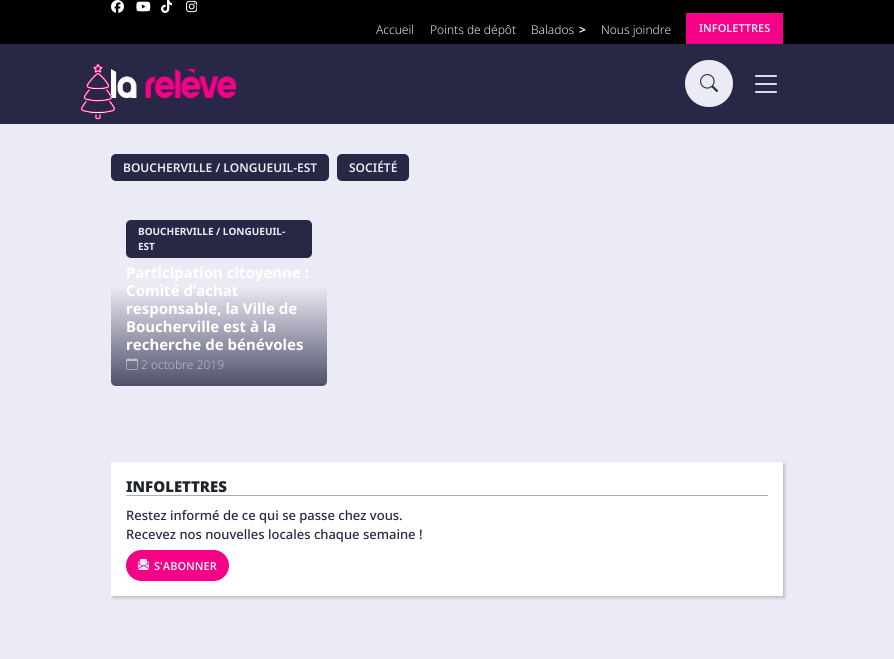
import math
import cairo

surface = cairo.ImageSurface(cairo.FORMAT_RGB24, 894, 659)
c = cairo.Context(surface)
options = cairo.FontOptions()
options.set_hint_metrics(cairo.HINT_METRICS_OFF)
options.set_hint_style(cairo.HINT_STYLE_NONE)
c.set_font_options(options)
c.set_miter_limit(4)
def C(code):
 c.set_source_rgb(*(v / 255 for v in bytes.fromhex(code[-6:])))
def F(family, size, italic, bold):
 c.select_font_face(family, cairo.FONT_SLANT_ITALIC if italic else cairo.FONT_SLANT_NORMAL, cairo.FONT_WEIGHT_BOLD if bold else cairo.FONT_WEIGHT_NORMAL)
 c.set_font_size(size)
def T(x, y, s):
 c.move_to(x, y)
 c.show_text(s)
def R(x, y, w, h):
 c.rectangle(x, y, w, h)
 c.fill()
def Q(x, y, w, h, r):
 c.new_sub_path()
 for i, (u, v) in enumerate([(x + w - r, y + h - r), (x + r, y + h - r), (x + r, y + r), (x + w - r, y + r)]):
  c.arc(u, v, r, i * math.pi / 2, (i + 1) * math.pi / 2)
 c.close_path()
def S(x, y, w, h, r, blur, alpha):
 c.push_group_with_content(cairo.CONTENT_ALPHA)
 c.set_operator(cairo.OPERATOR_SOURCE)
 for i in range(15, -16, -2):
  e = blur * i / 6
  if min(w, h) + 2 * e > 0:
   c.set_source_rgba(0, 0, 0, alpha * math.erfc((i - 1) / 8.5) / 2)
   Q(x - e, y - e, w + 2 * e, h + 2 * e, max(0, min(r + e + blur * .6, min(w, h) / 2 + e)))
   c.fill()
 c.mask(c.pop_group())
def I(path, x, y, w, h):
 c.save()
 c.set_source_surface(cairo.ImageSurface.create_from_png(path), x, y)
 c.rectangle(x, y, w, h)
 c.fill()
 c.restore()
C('ebebf5')
c.paint()
C('000000')
R(0,0,894,44)
I('1.png',111,0,13,13)
I('2.png',136,1,15,11)
I('3.png',161,0,11,13)
I('4.png',186,0,11,13)
F('Noto Sans Light',12,0,0)
C('ebebf5')
T(376,34,'Accueil')
T(430,34,'Points de dépôt')
T(531,34,'Balados')
F('Noto Sans',12,0,1)
T(579,34,'>')
F('Noto Sans Light',12,0,0)
T(601,34,'Nous joindre')
C('f50087')
R(686,13,97,31)
F('Noto Sans SemiBold',11,0,0)
C('ebebf5')
T(699,32,'INFOLETTRES')
C('282846')
R(0,44,894,80)
I('6.png',111,69,125,29)
I('5.png',80,64,35,56)
C('ebebf5')
Q(685,60,48,47,23.5)
c.fill()
I('7.png',700,74,18,18)
I('8.png',755,75,22,18)
C('282846')
Q(111,154,218,27,5)
c.fill()
F('Noto Sans SemiBold',12,0,0)
C('ebebf5')
T(123,172,'BOUCHERVILLE / LONGUEUIL-EST')
C('282846')
Q(337,154,72,27,5)
c.fill()
C('ebebf5')
T(349,172,'SOCIÉTÉ')
C('282846')
Q(126,220,186,38,5)
c.fill()
F('Noto Sans',10,0,1)
C('ebebf5')
T(138,235,'BOUCHERVILLE / LONGUEUIL-')
T(138,250,'EST')
F('Noto Sans',15,0,1)
C('ffffff')
T(126,278,'Participation citoyenne :')
gradient = cairo.LinearGradient(219,386,219,286)
gradient.add_color_stop_rgba(0,0.31,0.31,0.412,1)
gradient.add_color_stop_rgba(1,0.922,0.922,0.961,1)
c.set_source(gradient)
c.new_path()
c.move_to(111,286)
c.line_to(327,286)
c.line_to(327,381)
c.curve_to(327,384,325,386,322,386)
c.line_to(116,386)
c.curve_to(113,386,111,384,111,381)
c.close_path()
c.fill()
C('ffffff')
T(126,296,'Comité d’achat')
T(126,314,'responsable, la Ville de')
T(126,332,'Boucherville est à la')
T(126,350,'recherche de bénévoles')
I('9.png',126,358,12,12)
F('Noto Sans Light',12,0,0)
C('babac9')
T(141,369,'2 octobre 2019')
C('000000')
S(113,464,672,134,0,1.5,.2)
C('ffffff')
R(111,462,672,134)
C('ababb7')
R(126,495,642,1)
F('Noto Sans Black',15,0,0)
C('212529')
T(126,492,'INFOLETTRES')
F('Noto Sans Medium',13,0,0)
C('282846')
T(126,520,'Restez informé de ce qui se passe chez vous.')
T(126,539,'Recevez nos nouvelles locales chaque semaine !')
C('f50087')
Q(126,550,103,31,15.5)
c.fill()
I('10.png',138,559,11,11)
F('Noto Sans SemiBold',11,0,0)
C('ebebf5')
T(154,570,'S\'ABONNER')
surface.write_to_png('o.png')
